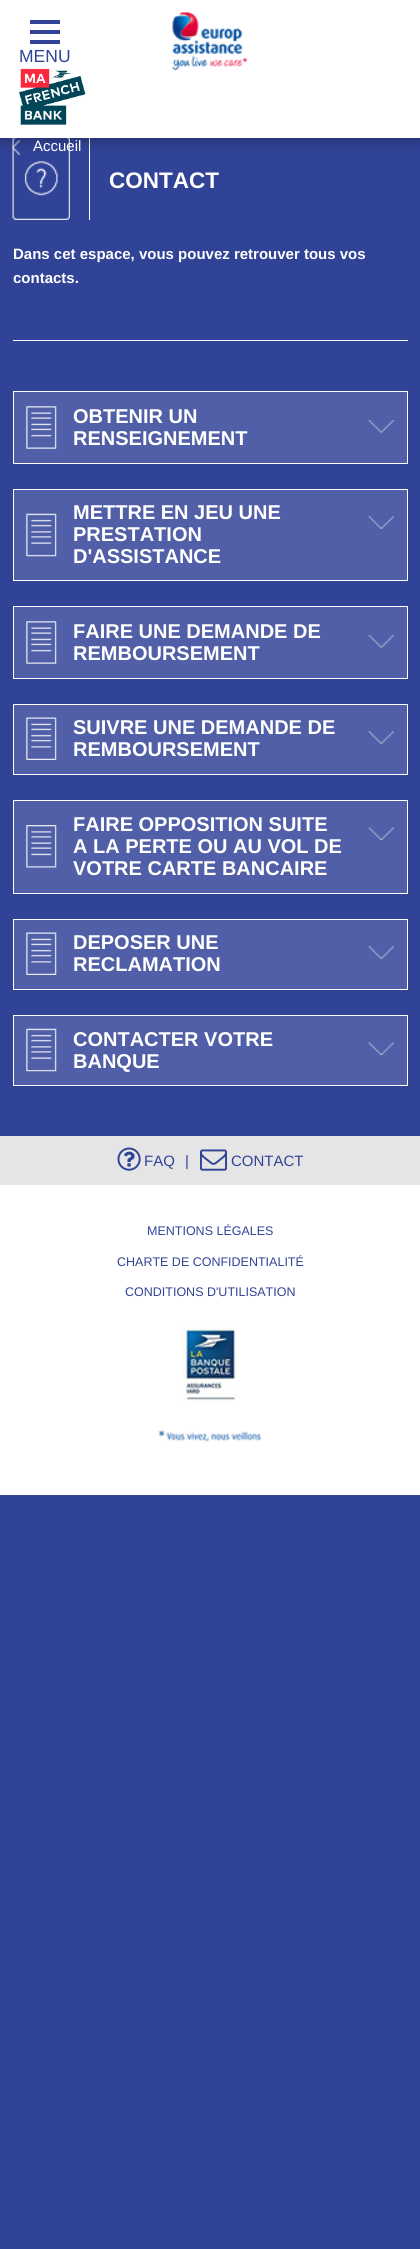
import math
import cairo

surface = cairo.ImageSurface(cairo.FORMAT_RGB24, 420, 2249)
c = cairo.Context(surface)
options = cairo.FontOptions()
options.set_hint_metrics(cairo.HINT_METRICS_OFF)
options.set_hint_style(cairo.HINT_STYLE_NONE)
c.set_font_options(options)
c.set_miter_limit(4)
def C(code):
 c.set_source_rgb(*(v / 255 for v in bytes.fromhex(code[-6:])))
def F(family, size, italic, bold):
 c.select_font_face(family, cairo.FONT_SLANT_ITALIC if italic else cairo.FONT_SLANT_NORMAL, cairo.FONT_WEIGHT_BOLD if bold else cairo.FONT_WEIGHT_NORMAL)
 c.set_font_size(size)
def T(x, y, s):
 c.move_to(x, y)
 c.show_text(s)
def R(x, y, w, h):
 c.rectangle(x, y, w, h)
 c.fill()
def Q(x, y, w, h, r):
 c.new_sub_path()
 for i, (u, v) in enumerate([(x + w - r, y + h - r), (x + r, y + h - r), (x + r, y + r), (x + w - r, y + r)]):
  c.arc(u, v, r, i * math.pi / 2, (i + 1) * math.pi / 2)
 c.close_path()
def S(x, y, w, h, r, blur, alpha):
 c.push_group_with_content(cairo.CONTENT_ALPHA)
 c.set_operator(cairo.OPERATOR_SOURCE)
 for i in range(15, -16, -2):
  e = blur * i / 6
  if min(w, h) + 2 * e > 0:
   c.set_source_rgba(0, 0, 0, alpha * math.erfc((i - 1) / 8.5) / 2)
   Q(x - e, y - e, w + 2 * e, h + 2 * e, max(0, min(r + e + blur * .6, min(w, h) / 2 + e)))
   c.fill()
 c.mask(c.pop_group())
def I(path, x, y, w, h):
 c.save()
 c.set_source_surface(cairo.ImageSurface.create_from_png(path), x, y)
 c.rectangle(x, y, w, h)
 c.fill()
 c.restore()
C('314397')
c.paint()
I('4.png',12,138,58,82)
I('3.png',12,140,8,15)
C('ffffff')
R(89,136,1,84)
C('000000')
S(0,4,420,137,0,6,.3)
C('ffffff')
R(0,0,420,138)
C('314397')
R(30,30,30,4)
R(30,20,30,4)
R(30,40,30,4)
F('Liberation Sans',17.5,0,0)
T(19,62,'MENU')
I('1.png',18,68,68,57)
I('2.png',172,12,76,58)
F('Liberation Sans',15,0,0)
C('ffffff')
T(33,151,'Accueil')
R(13,340,395,1)
F('Liberation Sans',22.5,0,1)
T(109,188,'CONTACT')
F('Liberation Sans',15,0,1)
T(13,259,'Dans cet espace, vous pouvez retrouver tous vos')
T(13,283,'contacts.')
C('505fa7')
c.rectangle(13.5,391.5,394,72)
c.fill_preserve()
C('ffffff')
c.set_line_width(1)
c.stroke()
I('5.png',26,406,31,43)
F('Liberation Sans',20,0,1)
T(73,423,'OBTENIR UN')
T(73,445,'RENSEIGNEMENT')
I('6.png',368,420,26,13)
C('505fa7')
c.rectangle(13.5,489.5,394,91)
c.fill_preserve()
C('ffffff')
c.stroke()
I('7.png',26,513,31,44)
T(73,519,'METTRE EN JEU UNE')
T(73,541,'PRESTATION')
T(73,563,'D\'ASSISTANCE')
I('8.png',368,516,26,13)
C('505fa7')
c.rectangle(13.5,606.5,394,72)
c.fill_preserve()
C('ffffff')
c.stroke()
I('5.png',26,621,31,43)
T(73,638,'FAIRE UNE DEMANDE DE')
T(73,660,'REMBOURSEMENT')
I('6.png',368,635,26,13)
C('505fa7')
c.rectangle(13.5,704.5,394,70)
c.fill_preserve()
C('ffffff')
c.stroke()
I('9.png',26,717,31,43)
T(73,734,'SUIVRE UNE DEMANDE DE')
T(73,756,'REMBOURSEMENT')
I('8.png',368,731,26,13)
C('505fa7')
c.rectangle(13.5,800.5,394,93)
c.fill_preserve()
C('ffffff')
c.stroke()
I('10.png',26,825,31,43)
T(73,831,'FAIRE OPPOSITION SUITE')
T(73,853,'A LA PERTE OU AU VOL DE')
T(73,875,'VOTRE CARTE BANCAIRE')
I('11.png',368,827,26,13)
C('505fa7')
c.rectangle(13.5,919.5,394,70)
c.fill_preserve()
C('ffffff')
c.stroke()
I('9.png',26,932,31,43)
T(73,949,'DEPOSER UNE')
T(73,971,'RECLAMATION')
I('8.png',368,946,26,13)
C('505fa7')
c.rectangle(13.5,1015.5,394,70)
c.fill_preserve()
C('ffffff')
c.stroke()
I('7.png',26,1028,31,44)
T(73,1046,'CONTACTER VOTRE')
T(73,1068,'BANQUE')
I('11.png',368,1042,26,13)
R(0,1185,420,310)
C('e5e5e5')
R(0,1136,420,49)
I('12.png',117,1147,24,24)
F('Liberation Sans',15,0,0)
C('314397')
T(144,1166,'FAQ')
T(185,1166,'|')
I('13.png',200,1149,27,22)
T(231,1166,'CONTACT')
F('Liberation Sans',12.5,0,0)
T(147,1235,'MENTIONS LÉGALES')
T(117,1266,'CHARTE DE CONFIDENTIALITÉ')
T(125,1296,'CONDITIONS D\'UTILISATION')
I('14.png',182,1326,56,75)
I('15.png',158,1430,104,12)
surface.write_to_png('o.png')
